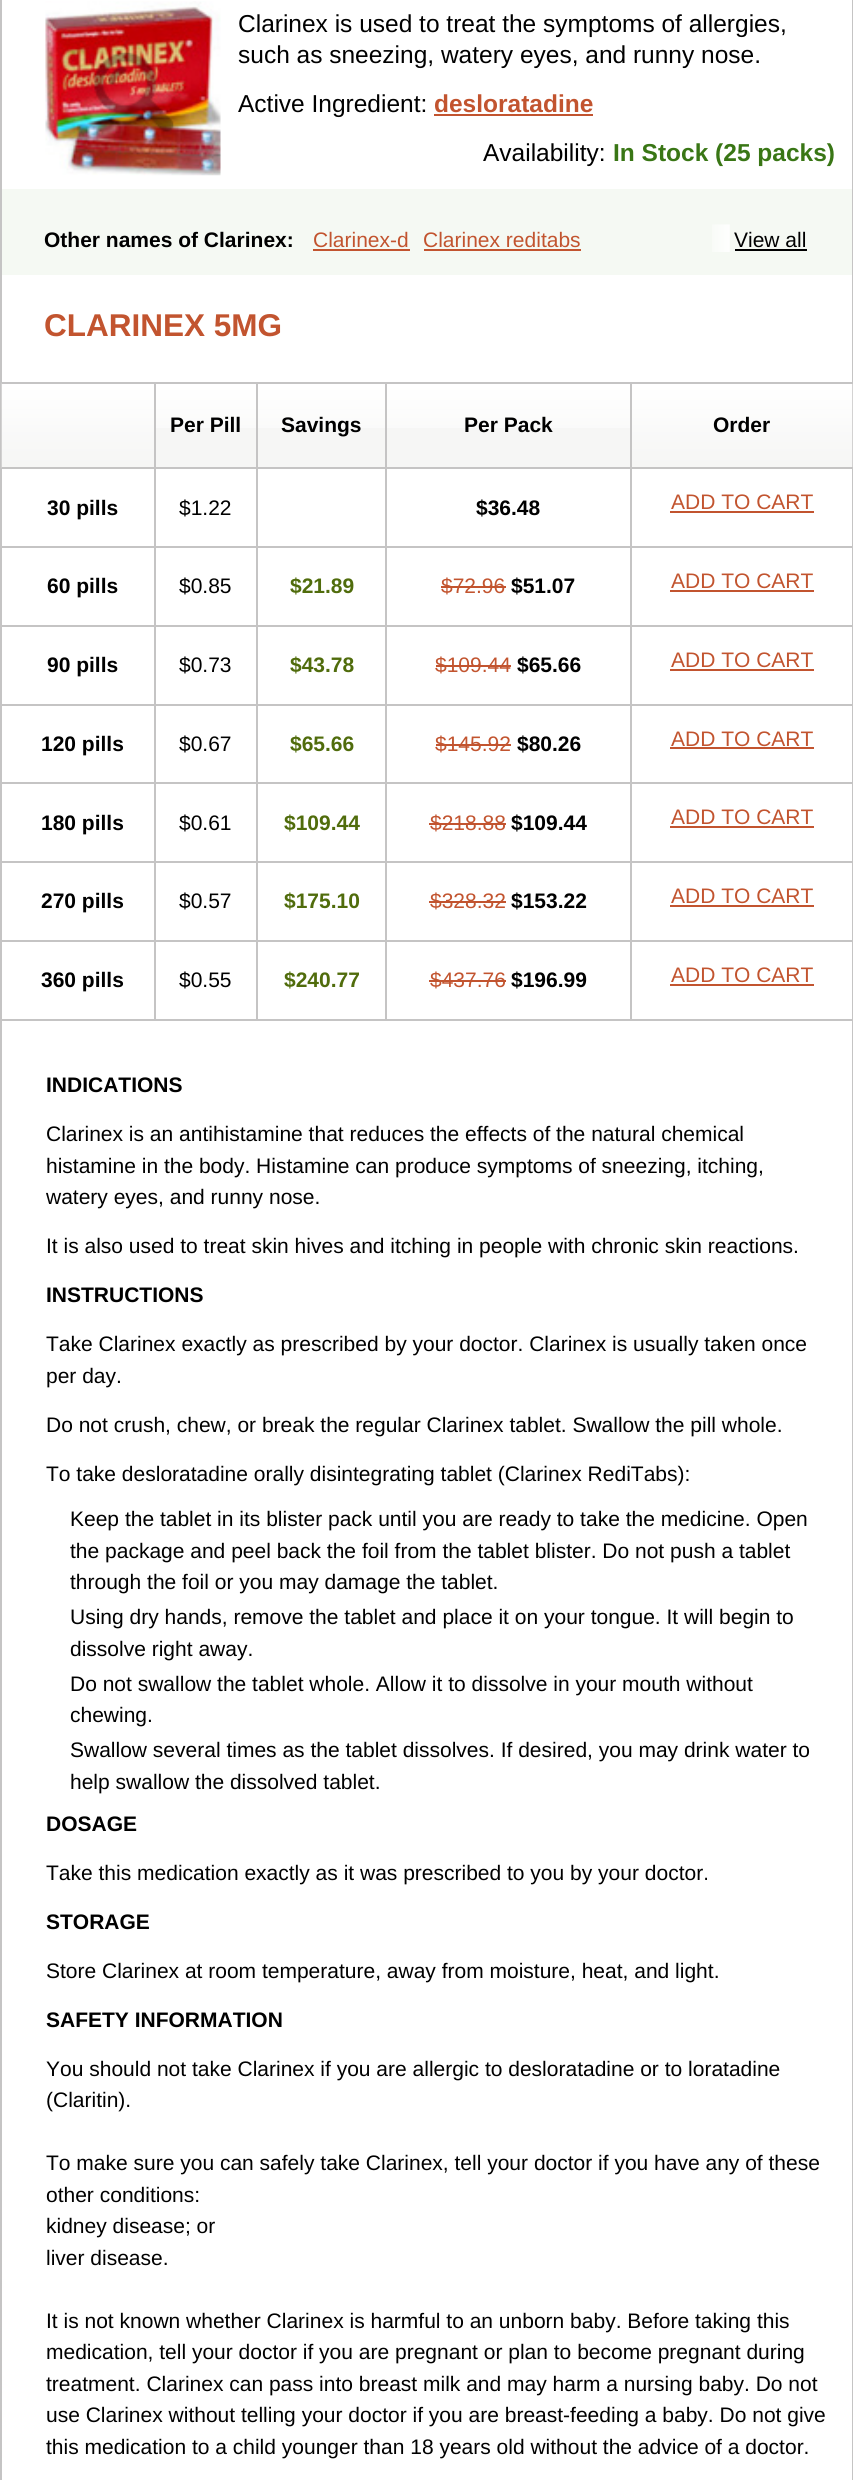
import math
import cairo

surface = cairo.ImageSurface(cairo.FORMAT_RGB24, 853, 2480)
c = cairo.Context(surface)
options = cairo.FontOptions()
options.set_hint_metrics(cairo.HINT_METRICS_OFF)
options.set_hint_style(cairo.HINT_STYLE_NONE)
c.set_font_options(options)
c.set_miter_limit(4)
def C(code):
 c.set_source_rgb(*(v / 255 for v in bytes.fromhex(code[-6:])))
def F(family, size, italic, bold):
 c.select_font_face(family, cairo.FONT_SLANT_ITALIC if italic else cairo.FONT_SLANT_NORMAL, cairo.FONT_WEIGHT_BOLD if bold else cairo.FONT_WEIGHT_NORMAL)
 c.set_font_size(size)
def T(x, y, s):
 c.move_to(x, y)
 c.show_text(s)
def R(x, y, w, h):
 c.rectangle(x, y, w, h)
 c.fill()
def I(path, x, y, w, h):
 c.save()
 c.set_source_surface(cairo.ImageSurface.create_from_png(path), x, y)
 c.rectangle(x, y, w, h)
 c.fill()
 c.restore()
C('ffffff')
c.paint()
c.rectangle(1,-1,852,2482)
C('c5c4c4')
c.stroke()
I('1.png',45,1,176,175)
I('2.png',94,52,80,80)
F('Liberation Sans',24.5,0,0)
C('000000')
T(238,32,'Clarinex is used to treat the symptoms of allergies,')
T(238,63,'such as sneezing, watery eyes, and runny nose.')
T(238,112,'Active Ingredient:')
F('Liberation Sans',24.5,0,1)
C('c2542f')
T(434,112,'desloratadine')
R(434,114,159,2)
F('Liberation Sans',24.5,0,0)
C('000000')
T(483,161,'Availability:')
F('Liberation Sans',24.5,0,1)
C('397615')
T(613,161,'In Stock (25 packs)')
C('f5f9f3')
R(2,189,850,86)
F('Liberation Sans',21,0,1)
C('000000')
T(44,247,'Other names of Clarinex:')
F('Liberation Sans',21,0,0)
C('c2542f')
T(313,247,'Clarinex-d')
R(313,249,97,2)
T(423,247,'Clarinex reditabs')
R(424,249,157,2)
I('3.png',712,224,18,28)
C('000000')
T(734,247,'View all')
R(735,249,72,2)
F('Liberation Sans',31.5,0,1)
C('c2542f')
T(44,336,'CLARINEX 5MG')
C('c5c4c4')
R(2,1019,850,2)
I('4.png',1,383,153,85)
R(630,382,223,2)
R(630,467,223,2)
R(630,546,223,2)
R(630,625,223,2)
R(630,704,223,2)
R(630,782,223,2)
R(630,861,223,2)
R(630,940,223,2)
R(630,940,2,80)
R(385,940,247,2)
R(630,861,2,81)
R(385,861,247,2)
R(630,782,2,81)
R(385,782,247,2)
R(630,704,2,80)
R(385,704,247,2)
R(630,625,2,80)
R(385,625,247,2)
R(630,546,2,81)
R(385,546,247,2)
R(630,467,2,81)
R(385,467,247,2)
R(630,382,2,87)
R(385,382,247,2)
R(385,940,2,80)
R(256,940,131,2)
R(385,861,2,81)
R(256,861,131,2)
R(385,782,2,81)
R(256,782,131,2)
R(385,704,2,80)
R(256,704,131,2)
R(385,625,2,80)
R(256,625,131,2)
R(385,546,2,81)
R(256,546,131,2)
R(385,467,2,81)
R(256,467,131,2)
R(385,382,2,87)
R(256,382,131,2)
R(256,940,2,80)
R(154,940,103,2)
R(256,861,2,81)
R(154,861,103,2)
R(256,782,2,81)
R(154,782,103,2)
R(256,704,2,80)
R(154,704,103,2)
R(256,625,2,80)
R(154,625,103,2)
R(256,546,2,81)
R(154,546,103,2)
R(256,467,2,81)
R(154,467,103,2)
R(256,382,2,87)
R(154,382,103,2)
R(154,940,2,80)
R(2,940,154,2)
R(154,861,2,81)
R(2,861,154,2)
R(154,782,2,81)
R(2,782,154,2)
R(154,704,2,80)
R(2,704,154,2)
R(154,625,2,80)
R(2,625,154,2)
R(154,546,2,81)
R(2,546,154,2)
R(154,467,2,81)
R(2,467,154,2)
R(154,382,2,87)
R(2,382,154,2)
C('f6f6f5')
R(156,428,100,39)
I('5.png',156,384,100,44)
F('Liberation Sans',21,0,1)
C('000000')
T(170,432,'Per Pill')
C('f6f6f5')
R(258,428,127,39)
I('6.png',258,384,127,44)
C('000000')
T(281,432,'Savings')
C('f6f6f5')
R(387,428,243,39)
I('7.png',387,384,243,44)
C('000000')
T(464,432,'Per Pack')
I('8.png',632,384,221,83)
T(713,432,'Order')
T(47,515,'30 pills')
F('Liberation Sans',21,0,0)
T(179,515,'$1.22')
F('Liberation Sans',21,0,1)
T(476,515,'$36.48')
F('Liberation Sans',21,0,0)
C('c2542f')
T(671,509,'ADD TO CART')
R(670,511,144,2)
F('Liberation Sans',21,0,1)
C('000000')
T(47,593,'60 pills')
F('Liberation Sans',21,0,0)
T(179,593,'$0.85')
F('Liberation Sans',21,0,1)
C('506c0c')
T(290,593,'$21.89')
F('Liberation Sans',21,0,0)
C('c2542f')
T(441,593,'$72.96')
R(441,586,65,2)
F('Liberation Sans',21,0,1)
C('000000')
T(511,593,'$51.07')
F('Liberation Sans',21,0,0)
C('c2542f')
T(671,588,'ADD TO CART')
R(670,590,144,2)
F('Liberation Sans',21,0,1)
C('000000')
T(47,672,'90 pills')
F('Liberation Sans',21,0,0)
T(179,672,'$0.73')
F('Liberation Sans',21,0,1)
C('506c0c')
T(290,672,'$43.78')
F('Liberation Sans',21,0,0)
C('c2542f')
T(435,672,'$109.44')
R(436,665,75,2)
F('Liberation Sans',21,0,1)
C('000000')
T(517,672,'$65.66')
F('Liberation Sans',21,0,0)
C('c2542f')
T(671,667,'ADD TO CART')
R(670,669,144,2)
F('Liberation Sans',21,0,1)
C('000000')
T(41,751,'120 pills')
F('Liberation Sans',21,0,0)
T(179,751,'$0.67')
F('Liberation Sans',21,0,1)
C('506c0c')
T(290,751,'$65.66')
F('Liberation Sans',21,0,0)
C('c2542f')
T(435,751,'$145.92')
R(436,744,75,2)
F('Liberation Sans',21,0,1)
C('000000')
T(517,751,'$80.26')
F('Liberation Sans',21,0,0)
C('c2542f')
T(671,746,'ADD TO CART')
R(670,747,144,2)
F('Liberation Sans',21,0,1)
C('000000')
T(41,830,'180 pills')
F('Liberation Sans',21,0,0)
T(179,830,'$0.61')
F('Liberation Sans',21,0,1)
C('506c0c')
T(284,830,'$109.44')
F('Liberation Sans',21,0,0)
C('c2542f')
T(430,830,'$218.88')
R(429,823,77,2)
F('Liberation Sans',21,0,1)
C('000000')
T(511,830,'$109.44')
F('Liberation Sans',21,0,0)
C('c2542f')
T(671,824,'ADD TO CART')
R(670,826,144,2)
F('Liberation Sans',21,0,1)
C('000000')
T(41,908,'270 pills')
F('Liberation Sans',21,0,0)
T(179,908,'$0.57')
F('Liberation Sans',21,0,1)
C('506c0c')
T(284,908,'$175.10')
F('Liberation Sans',21,0,0)
C('c2542f')
T(430,908,'$328.32')
R(429,901,77,2)
F('Liberation Sans',21,0,1)
C('000000')
T(511,908,'$153.22')
F('Liberation Sans',21,0,0)
C('c2542f')
T(671,903,'ADD TO CART')
R(670,905,144,2)
F('Liberation Sans',21,0,1)
C('000000')
T(41,987,'360 pills')
F('Liberation Sans',21,0,0)
T(179,987,'$0.55')
F('Liberation Sans',21,0,1)
C('506c0c')
T(284,987,'$240.77')
F('Liberation Sans',21,0,0)
C('c2542f')
T(430,987,'$437.76')
R(429,980,77,2)
F('Liberation Sans',21,0,1)
C('000000')
T(511,987,'$196.99')
F('Liberation Sans',21,0,0)
C('c2542f')
T(671,982,'ADD TO CART')
R(670,984,144,2)
F('Liberation Sans',21,0,1)
C('000000')
T(46,1092,'INDICATIONS')
F('Liberation Sans',21,0,0)
T(46,1141,'Clarinex is an antihistamine that reduces the effects of the natural chemical')
T(46,1173,'histamine in the body. Histamine can produce symptoms of sneezing, itching,')
T(46,1204,'watery eyes, and runny nose.')
T(46,1253,'It is also used to treat skin hives and itching in people with chronic skin reactions.')
F('Liberation Sans',21,0,1)
T(46,1302,'INSTRUCTIONS')
F('Liberation Sans',21,0,0)
T(46,1351,'Take Clarinex exactly as prescribed by your doctor. Clarinex is usually taken once')
T(46,1383,'per day.')
T(46,1432,'Do not crush, chew, or break the regular Clarinex tablet. Swallow the pill whole.')
T(46,1481,'To take desloratadine orally disintegrating tablet (Clarinex RediTabs):')
T(70,1526,'Keep the tablet in its blister pack until you are ready to take the medicine. Open')
T(70,1558,'the package and peel back the foil from the tablet blister. Do not push a tablet')
T(70,1589,'through the foil or you may damage the tablet.')
T(70,1624,'Using dry hands, remove the tablet and place it on your tongue. It will begin to')
T(70,1656,'dissolve right away.')
T(70,1691,'Do not swallow the tablet whole. Allow it to dissolve in your mouth without')
T(70,1722,'chewing.')
T(70,1757,'Swallow several times as the tablet dissolves. If desired, you may drink water to')
T(70,1789,'help swallow the dissolved tablet.')
F('Liberation Sans',21,0,1)
T(46,1831,'DOSAGE')
F('Liberation Sans',21,0,0)
T(46,1880,'Take this medication exactly as it was prescribed to you by your doctor.')
F('Liberation Sans',21,0,1)
T(46,1929,'STORAGE')
F('Liberation Sans',21,0,0)
T(46,1978,'Store Clarinex at room temperature, away from moisture, heat, and light.')
F('Liberation Sans',21,0,1)
T(46,2027,'SAFETY INFORMATION')
F('Liberation Sans',21,0,0)
T(46,2076,'You should not take Clarinex if you are allergic to desloratadine or to loratadine')
T(46,2107,'(Claritin).')
T(46,2170,'To make sure you can safely take Clarinex, tell your doctor if you have any of these')
T(46,2202,'other conditions:')
T(46,2233,'kidney disease; or')
T(46,2265,'liver disease.')
T(46,2328,'It is not known whether Clarinex is harmful to an unborn baby. Before taking this')
T(46,2359,'medication, tell your doctor if you are pregnant or plan to become pregnant during')
T(46,2391,'treatment. Clarinex can pass into breast milk and may harm a nursing baby. Do not')
T(46,2422,'use Clarinex without telling your doctor if you are breast-feeding a baby. Do not give')
T(46,2454,'this medication to a child younger than 18 years old without the advice of a doctor.')
surface.write_to_png('o.png')
